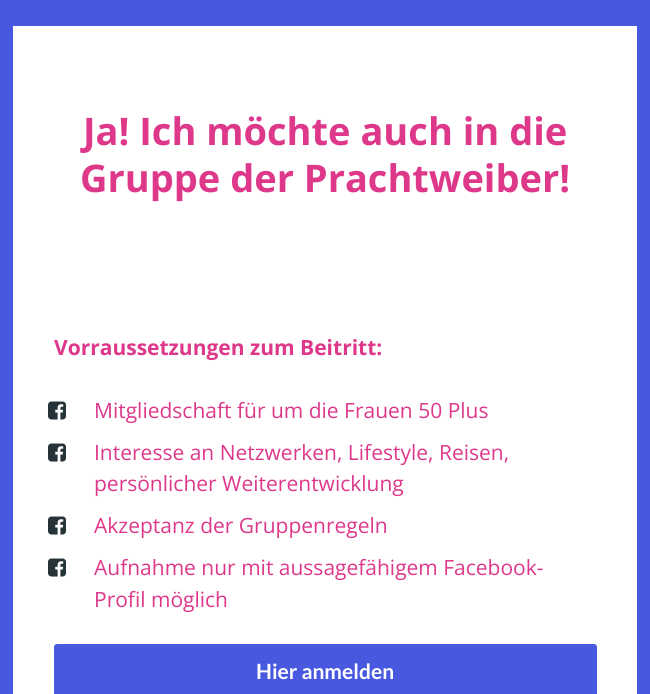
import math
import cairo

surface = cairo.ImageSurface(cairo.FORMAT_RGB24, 650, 694)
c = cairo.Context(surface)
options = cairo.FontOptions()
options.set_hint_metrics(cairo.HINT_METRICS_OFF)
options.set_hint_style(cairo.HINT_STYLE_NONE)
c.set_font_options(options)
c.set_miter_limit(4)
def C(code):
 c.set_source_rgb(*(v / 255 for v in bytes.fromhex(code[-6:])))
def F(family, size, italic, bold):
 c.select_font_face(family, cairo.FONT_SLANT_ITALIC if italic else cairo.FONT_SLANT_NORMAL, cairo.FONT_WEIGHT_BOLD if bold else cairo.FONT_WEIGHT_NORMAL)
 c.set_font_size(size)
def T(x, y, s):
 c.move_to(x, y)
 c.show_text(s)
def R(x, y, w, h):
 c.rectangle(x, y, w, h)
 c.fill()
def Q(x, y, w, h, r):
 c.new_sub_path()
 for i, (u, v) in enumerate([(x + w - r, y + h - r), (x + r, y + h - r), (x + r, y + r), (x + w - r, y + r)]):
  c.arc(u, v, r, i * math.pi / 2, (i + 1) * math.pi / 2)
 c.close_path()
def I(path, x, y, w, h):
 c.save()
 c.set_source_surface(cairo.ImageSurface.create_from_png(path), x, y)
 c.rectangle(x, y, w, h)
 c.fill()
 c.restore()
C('4859e0')
c.paint()
C('ffffff')
R(13,26,624,668)
F('Open Sans',38,0,1)
C('de388b')
T(83,145,'Ja! Ich möchte auch in die')
T(80,192,'Gruppe der Prachtweiber!')
F('Open Sans',21,0,1)
T(54,355,'Vorraussetzungen zum Beitritt:')
I('1.png',48,401,18,19)
F('Open Sans',21,0,0)
T(94,418,'Mitgliedschaft für um die Frauen 50 Plus')
I('1.png',48,443,18,19)
T(94,460,'Interesse an Netzwerken, Lifestyle, Reisen,')
T(94,491,'persönlicher Weiterentwicklung')
I('1.png',48,516,18,19)
T(94,533,'Akzeptanz der Gruppenregeln')
I('1.png',48,558,18,19)
T(94,575,'Aufnahme nur mit aussagefähigem Facebook-')
T(94,607,'Profil möglich')
C('4859e0')
Q(54.5,644.5,542,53,2.5)
c.fill_preserve()
c.set_line_width(1)
c.stroke()
F('Lato',21,0,1)
C('ffffff')
T(256,679,'Hier anmelden')
surface.write_to_png('o.png')
